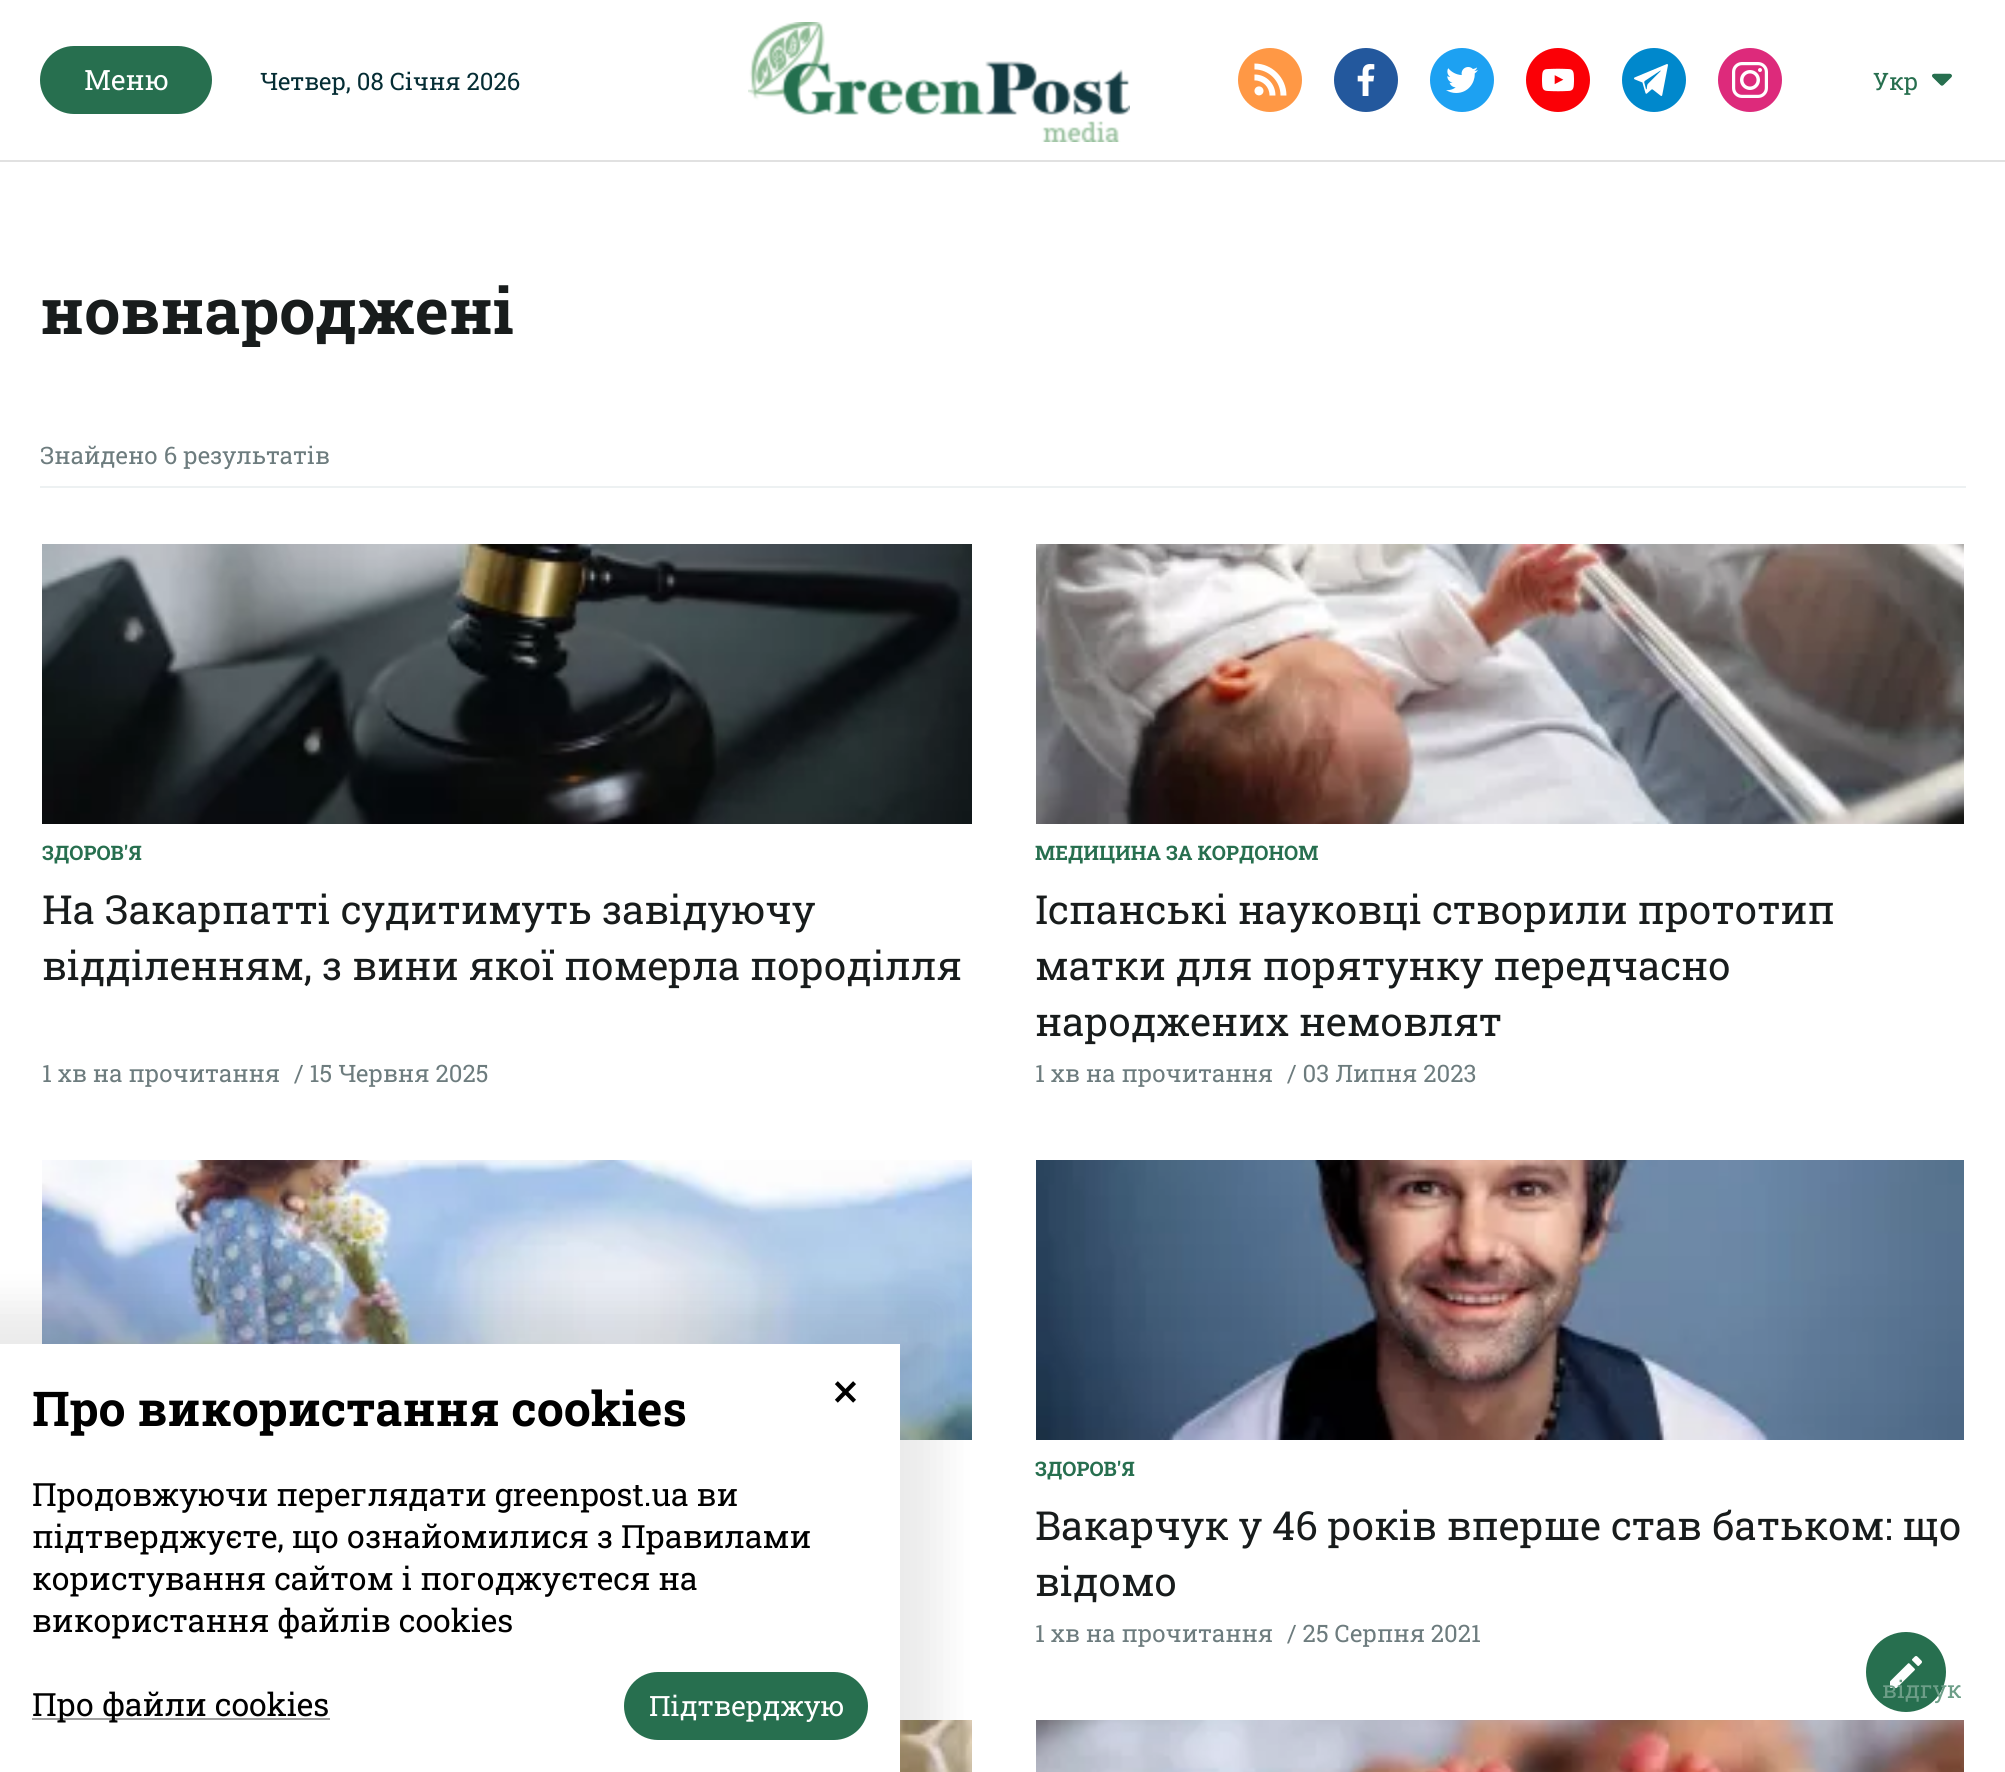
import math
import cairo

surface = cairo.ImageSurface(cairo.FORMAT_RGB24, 2005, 1772)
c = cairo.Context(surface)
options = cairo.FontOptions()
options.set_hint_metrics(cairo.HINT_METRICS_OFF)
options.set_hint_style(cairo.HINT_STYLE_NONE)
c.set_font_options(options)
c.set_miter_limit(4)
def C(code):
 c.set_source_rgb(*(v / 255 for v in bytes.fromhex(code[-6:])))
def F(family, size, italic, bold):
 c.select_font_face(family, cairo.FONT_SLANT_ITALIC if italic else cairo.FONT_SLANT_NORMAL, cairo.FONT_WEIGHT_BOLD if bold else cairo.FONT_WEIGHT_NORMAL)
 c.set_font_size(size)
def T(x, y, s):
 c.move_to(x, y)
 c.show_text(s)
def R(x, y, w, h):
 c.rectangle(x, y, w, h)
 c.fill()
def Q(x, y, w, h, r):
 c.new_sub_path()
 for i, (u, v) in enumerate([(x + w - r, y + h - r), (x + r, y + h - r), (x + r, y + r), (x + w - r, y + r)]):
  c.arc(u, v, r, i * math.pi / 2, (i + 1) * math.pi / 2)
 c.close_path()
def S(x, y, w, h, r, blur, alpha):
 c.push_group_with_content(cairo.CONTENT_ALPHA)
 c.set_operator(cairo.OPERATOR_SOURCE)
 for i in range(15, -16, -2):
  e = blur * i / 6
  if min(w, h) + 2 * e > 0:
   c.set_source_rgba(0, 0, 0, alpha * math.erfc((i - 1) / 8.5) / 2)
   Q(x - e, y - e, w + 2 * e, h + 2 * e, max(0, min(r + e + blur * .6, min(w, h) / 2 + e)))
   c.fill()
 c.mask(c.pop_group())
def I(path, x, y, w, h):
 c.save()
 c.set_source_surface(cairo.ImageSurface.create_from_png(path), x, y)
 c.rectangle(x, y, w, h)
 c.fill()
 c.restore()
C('ffffff')
c.paint()
C('e1e1e1')
R(0,160,2005,2)
C('276f4f')
Q(40,46,172,68,34)
c.fill()
F('Roboto Slab',28,0,0)
C('ffffff')
T(84,90,'Меню')
F('Roboto Slab',24,0,0)
C('052d34')
T(260,90,'Четвер, 08 Січня 2026')
I('1.png',748,22,382,120)
I('2.png',1238,48,64,64)
I('3.png',1334,48,64,64)
I('4.png',1430,48,64,64)
I('5.png',1526,48,64,64)
I('6.png',1622,48,64,64)
I('7.png',1718,48,64,64)
C('276f4f')
T(1873,90,'Укр')
I('8.png',1932,73,20,13)
F('Roboto Slab',64,0,1)
C('181c1c')
T(40,334,'новнароджені')
C('edf1f2')
R(40,486,1926,2)
F('Roboto Slab',24,0,0)
C('6d7c7e')
T(40,464,'Знайдено 6 результатів')
I('9.png',42,544,930,280)
F('Roboto Slab',20,0,1)
C('276f4f')
T(42,860,'ЗДОРОВ\'Я')
F('Roboto Slab',40,0,0)
C('181c1c')
T(42,924,'На Закарпатті судитимуть завідуючу')
T(42,980,'відділенням, з вини якої померла породілля')
F('Roboto Slab',24,0,0)
C('6d7c7e')
T(42,1082,'1 хв на прочитання')
T(294,1082,'/ 15 Червня 2025')
I('10.png',1036,544,928,280)
F('Roboto Slab',20,0,1)
C('276f4f')
T(1035,860,'МЕДИЦИНА ЗА КОРДОНОМ')
F('Roboto Slab',40,0,0)
C('181c1c')
T(1035,924,'Іспанські науковці створили прототип')
T(1035,980,'матки для порятунку передчасно')
T(1035,1036,'народжених немовлят')
F('Roboto Slab',24,0,0)
C('6d7c7e')
T(1035,1082,'1 хв на прочитання')
T(1287,1082,'/ 03 Липня 2023')
I('11.png',42,1160,930,280)
I('12.png',1036,1160,928,280)
F('Roboto Slab',20,0,1)
C('276f4f')
T(1035,1476,'ЗДОРОВ\'Я')
F('Roboto Slab',40,0,0)
C('181c1c')
T(1035,1540,'Вакарчук у 46 років вперше став батьком: що')
T(1035,1596,'відомо')
F('Roboto Slab',24,0,0)
C('6d7c7e')
T(1035,1642,'1 хв на прочитання')
T(1287,1642,'/ 25 Серпня 2021')
I('13.png',900,1720,72,52)
I('14.png',1036,1720,928,52)
C('000000')
S(-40,1304,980,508,0,20,.08)
C('ffffff')
R(0,1344,900,428)
F('Roboto Slab',48,0,1)
C('000000')
T(32,1426,'Про використання cookies')
F('Roboto Slab',32,0,0)
T(32,1506,'Продовжуючи переглядати greenpost.ua ви')
T(32,1548,'підтверджуєте, що ознайомилися з Правилами')
T(32,1590,'користування сайтом і погоджуєтеся на')
T(32,1632,'використання файлів cookies')
F('Roboto Slab',48,0,0)
T(833,1408,'×')
C('9f9f9f')
R(32,1718,298,2)
F('Roboto Slab',32,0,0)
C('000000')
T(32,1716,'Про файли cookies')
C('276f4f')
Q(624,1672,244,68,34)
c.fill()
F('Roboto Slab',28,0,0)
C('ffffff')
T(649,1716,'Підтверджую')
C('276f4f')
c.new_path()
c.arc(1906,1672,40,0,2 * math.pi)
c.fill()
I('15.png',1890,1656,32,32)
F('Roboto Slab',24,0,0)
C('6d9e88')
T(1882,1698,'відгук')
surface.write_to_png('o.png')
